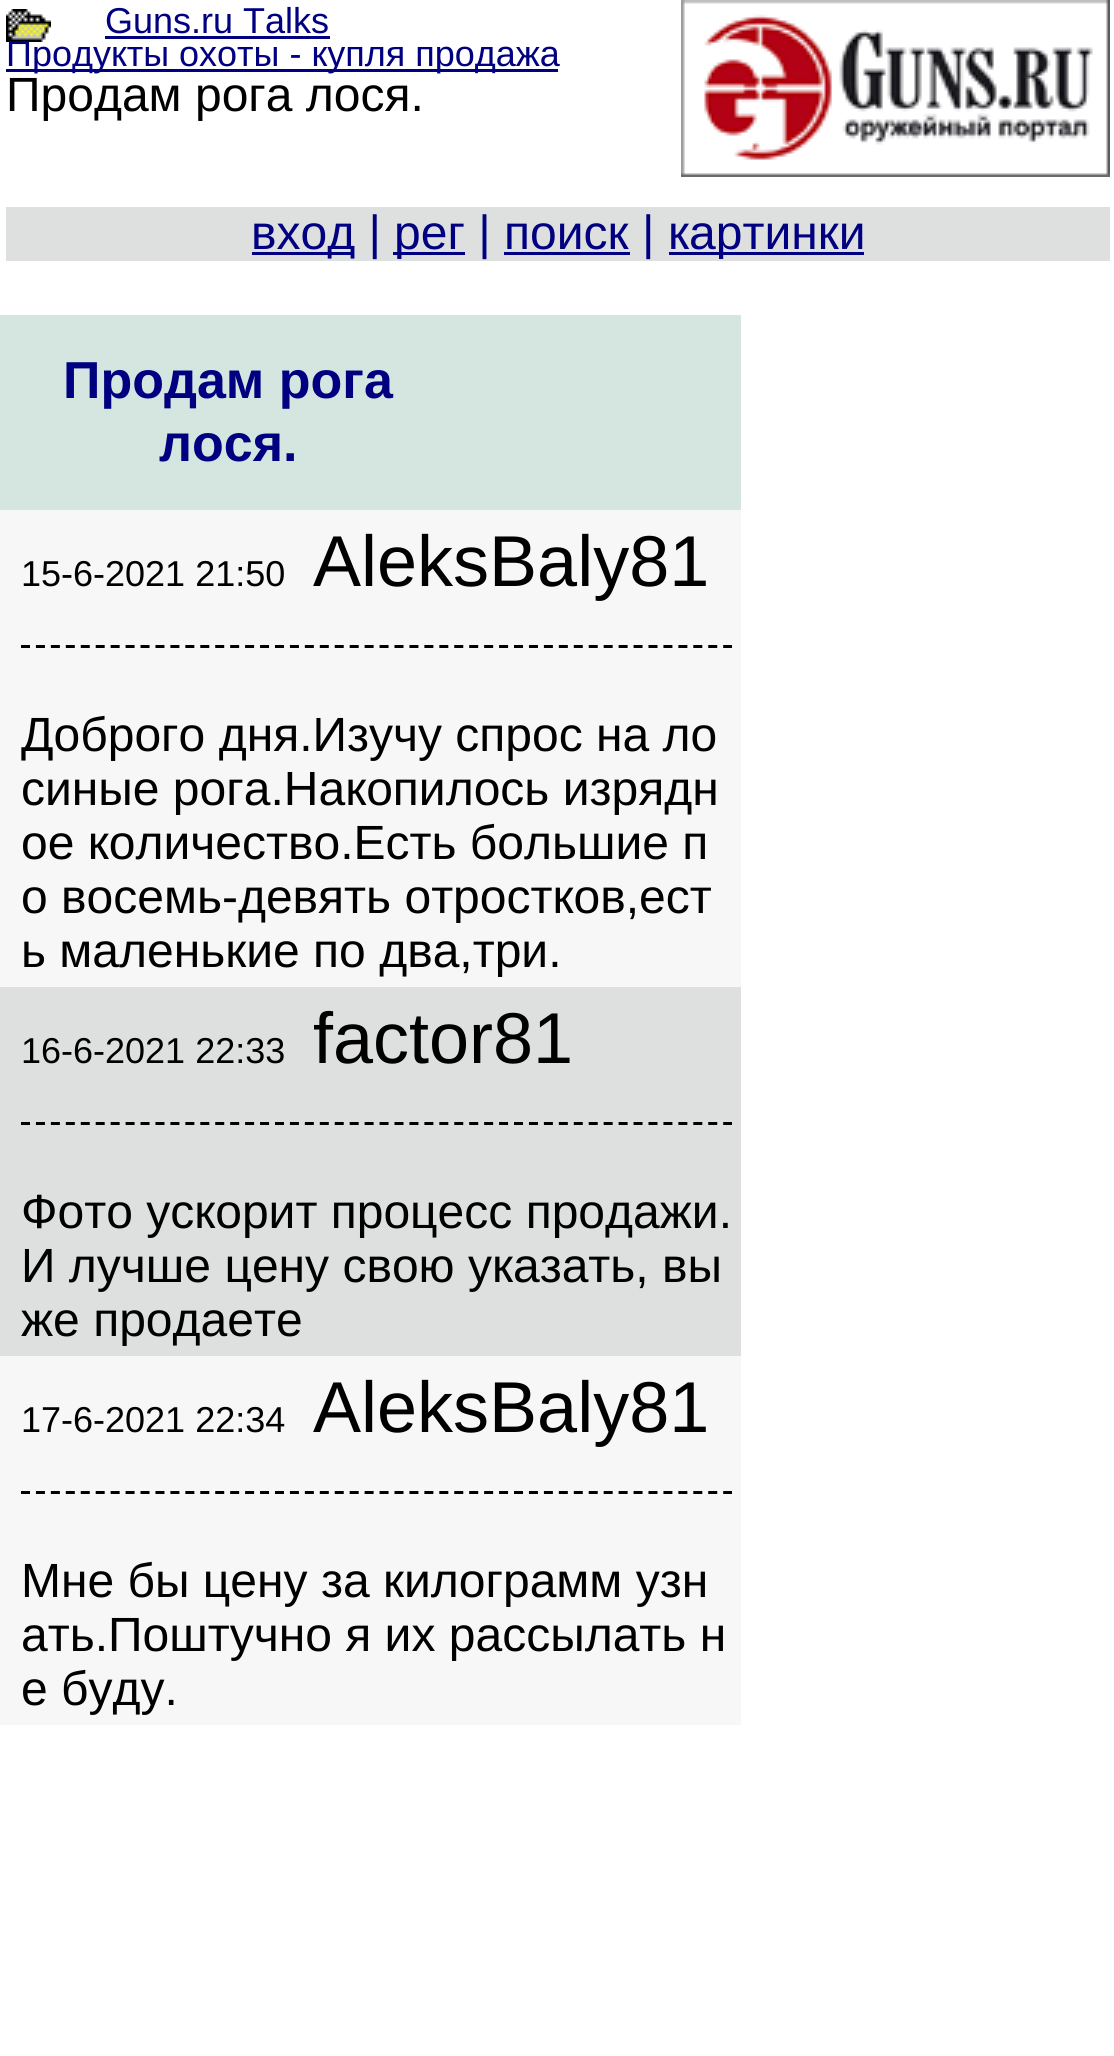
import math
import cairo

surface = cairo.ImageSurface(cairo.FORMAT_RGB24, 1114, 2056)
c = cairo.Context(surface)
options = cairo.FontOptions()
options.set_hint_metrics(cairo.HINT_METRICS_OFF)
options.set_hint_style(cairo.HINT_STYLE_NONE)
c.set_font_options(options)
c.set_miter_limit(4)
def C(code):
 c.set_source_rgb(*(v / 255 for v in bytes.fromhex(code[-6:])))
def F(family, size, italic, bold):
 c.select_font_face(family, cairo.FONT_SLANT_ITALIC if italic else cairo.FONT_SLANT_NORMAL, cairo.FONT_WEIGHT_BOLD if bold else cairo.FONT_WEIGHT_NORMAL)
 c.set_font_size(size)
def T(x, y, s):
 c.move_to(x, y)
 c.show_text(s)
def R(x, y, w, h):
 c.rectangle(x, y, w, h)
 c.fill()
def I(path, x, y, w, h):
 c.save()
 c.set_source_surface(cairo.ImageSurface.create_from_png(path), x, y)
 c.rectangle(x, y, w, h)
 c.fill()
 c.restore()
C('ffffff')
c.paint()
I('1.png',6,9,45,33)
F('Liberation Sans',36,0,0)
C('000080')
T(105,33,'Guns.ru Talks')
R(105,36,225,3)
R(6,69,552,3)
T(6,66,'Продукты охоты - купля продажа')
F('Liberation Sans',48,0,0)
C('000000')
T(6,111,'Продам рога лося.')
I('2.png',681,0,429,177)
C('dedfdf')
R(6,207,1104,54)
C('000080')
R(252,252,102,3)
T(251,249,'вход |')
R(393,252,72,3)
T(394,249,'рег | поиск |')
R(504,252,126,3)
R(669,252,195,3)
T(668,249,'картинки')
C('d5e6e1')
R(0,315,741,195)
F('Liberation Sans',52,0,1)
C('000080')
T(63,398,'Продам рога')
T(159,461,'лося.')
C('f7f7f7')
R(0,510,741,477)
F('Liberation Sans',36,0,0)
C('000000')
T(21,586,'15-6-2021 21:50')
F('Liberation Sans',72,0,0)
T(313,586,'AleksBaly81')
c.new_path()
c.move_to(21,646.5)
c.line_to(732,646.5)
c.set_line_width(3)
c.set_dash([9,5.94])
c.stroke()
F('Liberation Sans',48,0,0)
T(21,751,'Доброго дня.Изучу спрос на ло')
T(21,805,'синые рога.Накопилось изрядн')
T(21,859,'ое количество.Есть большие п')
T(21,913,'о восемь-девять отростков,ест')
T(21,967,'ь маленькие по два,три.')
C('dedfdf')
R(0,987,741,369)
F('Liberation Sans',36,0,0)
C('000000')
T(21,1063,'16-6-2021 22:33')
F('Liberation Sans',72,0,0)
T(313,1063,'factor81')
c.new_path()
c.move_to(21,1123.5)
c.line_to(732,1123.5)
c.stroke()
F('Liberation Sans',48,0,0)
T(21,1228,'Фото ускорит процесс продажи.')
T(21,1282,'И лучше цену свою указать, вы')
T(21,1336,'же продаете')
C('f7f7f7')
R(0,1356,741,369)
F('Liberation Sans',36,0,0)
C('000000')
T(21,1432,'17-6-2021 22:34')
F('Liberation Sans',72,0,0)
T(313,1432,'AleksBaly81')
c.new_path()
c.move_to(21,1492.5)
c.line_to(732,1492.5)
c.stroke()
F('Liberation Sans',48,0,0)
T(21,1597,'Мне бы цену за килограмм узн')
T(21,1651,'ать.Поштучно я их рассылать н')
T(21,1705,'е буду.')
surface.write_to_png('o.png')
